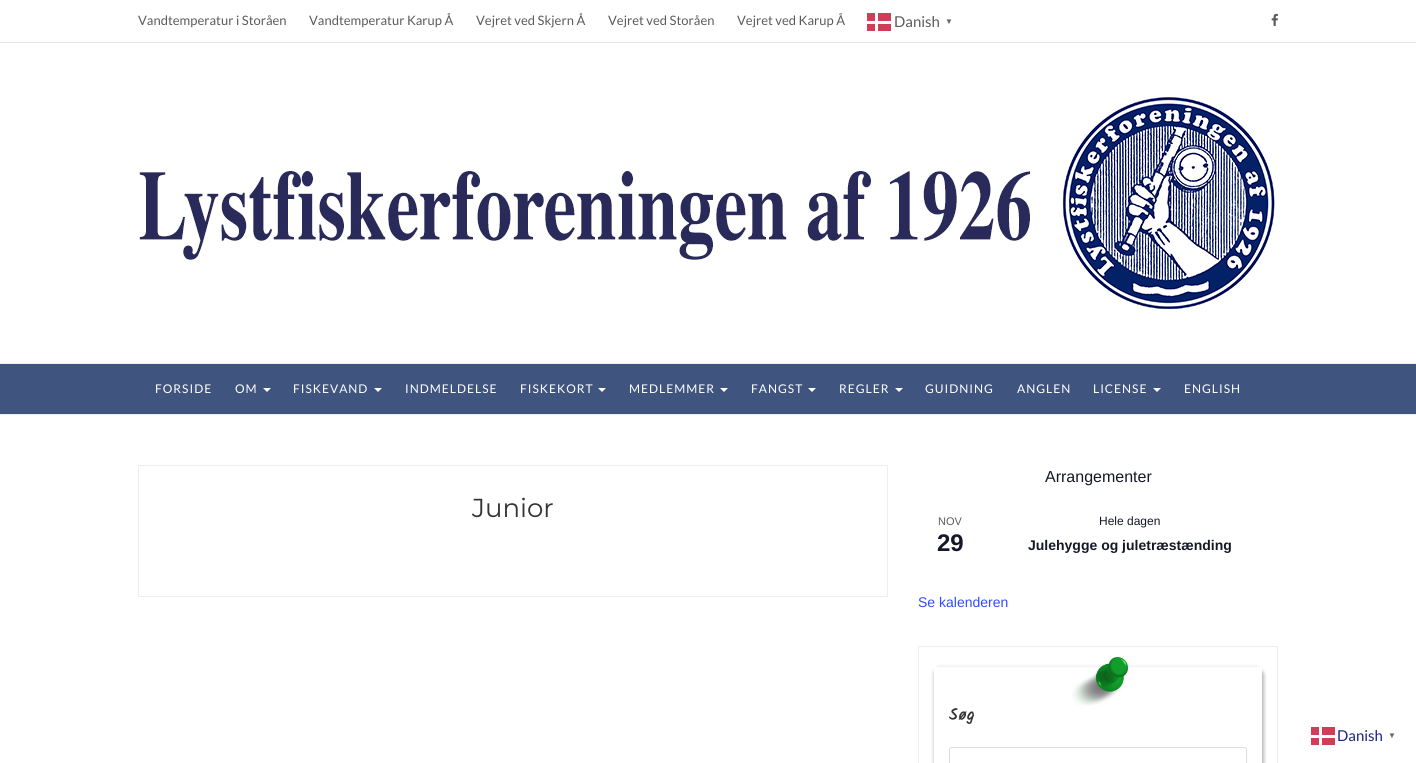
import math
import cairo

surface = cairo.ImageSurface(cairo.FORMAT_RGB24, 1416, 763)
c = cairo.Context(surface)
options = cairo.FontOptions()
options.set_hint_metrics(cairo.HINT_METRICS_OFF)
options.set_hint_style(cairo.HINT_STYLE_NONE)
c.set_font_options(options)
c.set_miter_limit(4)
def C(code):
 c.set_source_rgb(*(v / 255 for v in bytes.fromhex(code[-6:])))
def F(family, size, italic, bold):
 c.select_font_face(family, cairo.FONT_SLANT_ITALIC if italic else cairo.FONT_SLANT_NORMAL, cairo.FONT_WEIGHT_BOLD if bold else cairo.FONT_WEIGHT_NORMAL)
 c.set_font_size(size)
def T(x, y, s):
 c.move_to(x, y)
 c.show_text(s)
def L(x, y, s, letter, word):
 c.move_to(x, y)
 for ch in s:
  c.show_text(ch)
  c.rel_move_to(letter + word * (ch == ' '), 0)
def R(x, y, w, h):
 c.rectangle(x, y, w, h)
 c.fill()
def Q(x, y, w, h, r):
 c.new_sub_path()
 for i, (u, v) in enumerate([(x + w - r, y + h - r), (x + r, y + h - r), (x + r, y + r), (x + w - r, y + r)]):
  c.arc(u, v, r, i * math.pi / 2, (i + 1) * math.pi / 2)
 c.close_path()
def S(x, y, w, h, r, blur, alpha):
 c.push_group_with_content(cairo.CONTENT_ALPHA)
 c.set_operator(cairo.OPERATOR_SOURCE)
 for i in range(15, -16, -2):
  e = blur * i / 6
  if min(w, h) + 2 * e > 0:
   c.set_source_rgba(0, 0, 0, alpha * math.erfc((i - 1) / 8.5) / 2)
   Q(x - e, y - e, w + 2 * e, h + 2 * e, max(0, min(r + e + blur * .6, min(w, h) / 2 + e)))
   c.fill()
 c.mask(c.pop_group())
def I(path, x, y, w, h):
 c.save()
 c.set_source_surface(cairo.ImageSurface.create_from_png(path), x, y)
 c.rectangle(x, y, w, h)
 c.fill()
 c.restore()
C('ffffff')
c.paint()
C('e5e5e5')
R(0,42,1416,1)
F('Lato',13,0,0)
C('5b5b5b')
T(138,25,'Vandtemperatur i Storåen')
T(309,25,'Vandtemperatur Karup Å')
T(476,25,'Vejret ved Skjern Å')
T(608,25,'Vejret ved Storåen')
T(737,25,'Vejret ved Karup Å')
F('Lato',15,0,0)
T(894,27,'Danish')
C('d13d59')
R(867,13,24,18)
C('ffffff')
R(875,13,3,18)
R(867,21,24,3)
F('Liberation Sans',8,0,1)
C('666666')
T(945,24,'▼')
I('1.png',1271,13,7,13)
I('2.png',139,97,1136,213)
C('3f547f')
R(0,364,1416,50)
C('eeeeee')
R(0,363,1416,1)
R(0,414,1416,1)
F('Lato',12,0,0)
C('ffffff')
L(155,393,'FORSIDE',1,0)
L(235,393,'OM',1,0)
c.new_path()
c.move_to(263,388)
c.line_to(271,388)
c.line_to(267,392)
c.close_path()
c.fill()
L(293,393,'FISKEVAND',1,0)
c.new_path()
c.move_to(374,388)
c.line_to(382,388)
c.line_to(378,392)
c.close_path()
c.fill()
L(405,393,'INDMELDELSE',1,0)
L(520,393,'FISKEKORT',1,0)
c.new_path()
c.move_to(598,388)
c.line_to(606,388)
c.line_to(602,392)
c.close_path()
c.fill()
L(629,393,'MEDLEMMER',1,0)
c.new_path()
c.move_to(720,388)
c.line_to(728,388)
c.line_to(724,392)
c.close_path()
c.fill()
L(751,393,'FANGST',1,0)
c.new_path()
c.move_to(808,388)
c.line_to(816,388)
c.line_to(812,392)
c.close_path()
c.fill()
L(839,393,'REGLER',1,0)
c.new_path()
c.move_to(895,388)
c.line_to(903,388)
c.line_to(899,392)
c.close_path()
c.fill()
L(925,393,'GUIDNING',1,0)
L(1017,393,'ANGLEN',1,0)
L(1093,393,'LICENSE',1,0)
c.new_path()
c.move_to(1153,388)
c.line_to(1161,388)
c.line_to(1157,392)
c.close_path()
c.fill()
L(1184,393,'ENGLISH',1,0)
c.rectangle(138.5,465.5,749,131)
C('eeeeee')
c.set_line_width(1)
c.stroke()
F('Montserrat',26,0,0)
C('333333')
T(472,517,'Junior')
F('Liberation Sans',16,0,0)
C('141827')
T(1045,482,'Arrangementer')
F('Liberation Sans',11,0,0)
C('5b5b5b')
T(938,525,'NOV')
F('Liberation Sans',24,0,1)
C('141827')
T(937,551,'29')
F('Liberation Sans',12,0,0)
T(1099,525,'Hele dagen')
F('Liberation Sans',14,0,1)
T(1028,550,'Julehygge og juletræstænding')
F('Liberation Sans',14,0,0)
C('334aff')
T(918,607,'Se kalenderen')
c.rectangle(918.5,646.5,359,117)
C('eeeeee')
c.stroke()
c.save()
c.rectangle(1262,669,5,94)
c.clip()
C('000000')
S(937,670,328,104,6,1.5,.15)
c.restore()
c.save()
c.set_fill_rule(cairo.FILL_RULE_EVEN_ODD)
c.new_path()
c.move_to(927,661)
c.line_to(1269,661)
c.line_to(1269,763)
c.line_to(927,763)
c.close_path()
c.move_to(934,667)
c.line_to(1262,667)
c.line_to(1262,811)
c.curve_to(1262,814.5,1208.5,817,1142,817)
c.line_to(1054,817)
c.curve_to(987.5,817,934,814.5,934,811)
c.close_path()
c.clip()
C('000000')
S(934,668,328,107,6,2,.27)
c.restore()
I('3.png',1072,657,56,49)
F('Kalam',16,0,1)
C('333333')
L(949,720,'Søg',1,0)
Q(949.5,747.5,297,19,2.5)
C('dddddd')
c.stroke()
F('Lato',15,0,0)
C('1d2284')
T(1337,741,'Danish')
C('d13d59')
R(1311,727,24,18)
C('ffffff')
R(1319,727,3,18)
R(1311,735,24,3)
F('Liberation Sans',8,0,1)
C('666666')
T(1388,738,'▼')
surface.write_to_png('o.png')
